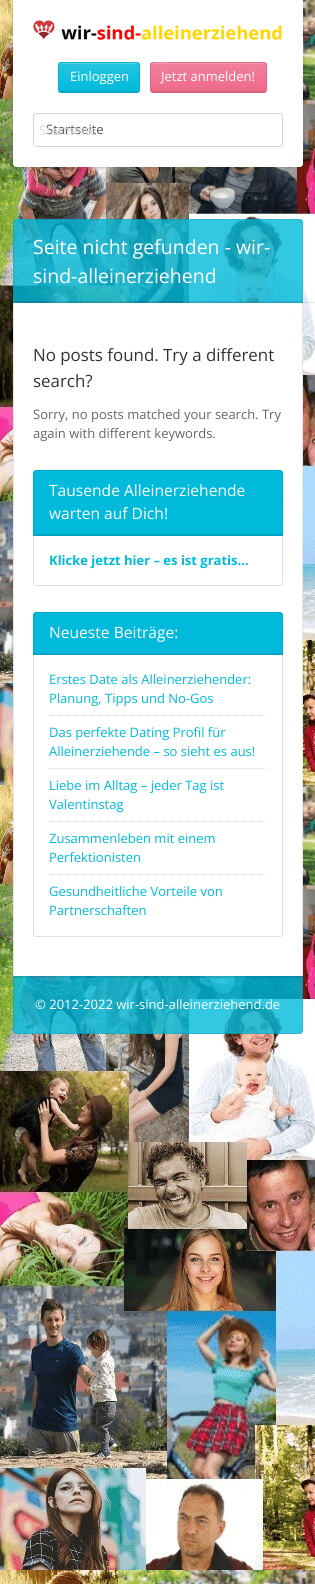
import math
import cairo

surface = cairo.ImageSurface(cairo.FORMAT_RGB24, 315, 1584)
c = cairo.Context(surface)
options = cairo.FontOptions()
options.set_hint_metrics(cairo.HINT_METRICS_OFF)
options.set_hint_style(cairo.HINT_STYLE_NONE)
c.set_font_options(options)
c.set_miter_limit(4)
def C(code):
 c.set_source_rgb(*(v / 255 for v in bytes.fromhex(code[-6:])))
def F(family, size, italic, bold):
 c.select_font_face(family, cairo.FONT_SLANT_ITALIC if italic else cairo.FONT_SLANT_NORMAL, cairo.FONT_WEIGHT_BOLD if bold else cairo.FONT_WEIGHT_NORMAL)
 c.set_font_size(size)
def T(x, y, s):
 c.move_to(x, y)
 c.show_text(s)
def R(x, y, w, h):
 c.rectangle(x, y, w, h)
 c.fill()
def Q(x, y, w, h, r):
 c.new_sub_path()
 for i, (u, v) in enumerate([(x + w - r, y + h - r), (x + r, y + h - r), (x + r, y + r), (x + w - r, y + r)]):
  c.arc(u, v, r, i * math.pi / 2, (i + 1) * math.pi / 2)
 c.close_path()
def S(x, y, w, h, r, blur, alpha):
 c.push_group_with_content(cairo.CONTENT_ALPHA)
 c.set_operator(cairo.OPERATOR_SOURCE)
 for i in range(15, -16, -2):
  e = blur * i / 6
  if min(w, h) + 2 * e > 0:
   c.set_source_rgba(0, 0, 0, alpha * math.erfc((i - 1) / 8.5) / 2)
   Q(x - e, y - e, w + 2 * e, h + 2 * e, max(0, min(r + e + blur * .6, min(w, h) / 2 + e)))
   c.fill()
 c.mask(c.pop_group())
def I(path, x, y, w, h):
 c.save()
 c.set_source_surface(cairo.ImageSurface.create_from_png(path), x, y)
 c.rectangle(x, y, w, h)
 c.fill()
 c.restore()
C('ffffff')
c.paint()
I('1.png',0,0,315,1584)
I('2.png',0,45,315,258)
c.set_source_rgba(0,0,0,0.1)
R(0,302,315,1)
C('000000')
S(13,0,290,167,3,2.5,.2)
C('ffffff')
c.new_path()
c.move_to(13,0)
c.line_to(303,0)
c.line_to(303,164)
c.curve_to(303,165.5,301.5,167,300,167)
c.line_to(16,167)
c.curve_to(14.5,167,13,165.5,13,164)
c.close_path()
c.fill()
I('3.png',33,20,249,20)
C('00badb')
Q(58,62,82,31,3)
c.fill()
c.set_source_rgba(0,0,0,0.05)
c.new_path()
c.move_to(61,62)
c.line_to(59,63)
c.line_to(60,64)
c.line_to(61,63)
c.line_to(137,63)
c.line_to(138,64)
c.line_to(139,63)
c.line_to(137,62)
c.close_path()
c.fill()
c.new_path()
c.move_to(140,90)
c.line_to(140,65)
c.curve_to(140,64,140,63,139,63)
c.line_to(138.5,63.5)
c.line_to(139,65)
c.line_to(139,90.5)
c.line_to(139.5,92)
c.close_path()
c.fill()
c.set_source_rgba(0,0,0,0.1)
c.new_path()
c.move_to(61,93)
c.line_to(138,93)
c.line_to(139,92)
c.line_to(139,91)
c.line_to(137,91)
c.line_to(60,91)
c.line_to(59,91)
c.line_to(59,92)
c.close_path()
c.fill()
c.set_source_rgba(0,0,0,0.05)
c.new_path()
c.move_to(58,65)
c.line_to(58,90)
c.curve_to(58,91,58,91.5,58.5,92)
c.line_to(59,90.5)
c.line_to(59,65)
c.line_to(59.5,63.5)
c.line_to(59,63)
c.curve_to(58,63,58,64,58,65)
c.close_path()
c.fill()
gradient = cairo.LinearGradient(99,63,99,91)
gradient.add_color_stop_rgba(0,1,1,1,.15)
gradient.add_color_stop_rgba(1,1,1,1,0)
c.set_source(gradient)
Q(59,63,80,28,3)
c.fill()
c.set_source_rgba(1,1,1,0.2)
c.new_path()
c.move_to(62,64)
c.line_to(136,64)
c.curve_to(138,64,139,65,139,67)
c.curve_to(139,60,128,63,124,63)
c.line_to(74,63)
c.curve_to(70,63,59,60,59,67)
c.curve_to(59,65,60,64,62,64)
c.close_path()
c.fill()
F('Open Sans',13,0,0)
C('ffffff')
T(70,81,'Einloggen')
C('ef6a8a')
Q(150,62,117,31,3)
c.fill()
c.set_source_rgba(0,0,0,0.05)
c.new_path()
c.move_to(153,62)
c.line_to(151,63)
c.line_to(152,64)
c.line_to(153,63)
c.line_to(246,63)
c.line_to(264,63)
c.line_to(265,64)
c.line_to(266,63)
c.line_to(264,62)
c.close_path()
c.fill()
c.new_path()
c.move_to(267,90)
c.line_to(267,65)
c.curve_to(267,64,267,63,266,63)
c.line_to(265.5,63.5)
c.line_to(266,65)
c.line_to(266,90.5)
c.line_to(266.5,92)
c.close_path()
c.fill()
c.set_source_rgba(0,0,0,0.1)
c.new_path()
c.move_to(153,93)
c.line_to(264,93)
c.line_to(266,92)
c.line_to(266,91)
c.line_to(264,91)
c.line_to(153,91)
c.line_to(151,91)
c.line_to(151,92)
c.close_path()
c.fill()
c.set_source_rgba(0,0,0,0.05)
c.new_path()
c.move_to(150,65)
c.line_to(150,90)
c.curve_to(150,91,150,91.5,150.5,92)
c.line_to(151,90.5)
c.line_to(151,65)
c.line_to(151.5,63.5)
c.line_to(151,63)
c.curve_to(150,63,150,64,150,65)
c.close_path()
c.fill()
gradient = cairo.LinearGradient(209,63,209,91)
gradient.add_color_stop_rgba(0,1,1,1,.15)
gradient.add_color_stop_rgba(1,1,1,1,0)
c.set_source(gradient)
Q(151,63,115,28,3)
c.fill()
c.set_source_rgba(1,1,1,0.2)
c.new_path()
c.move_to(154,64)
c.line_to(263,64)
c.curve_to(265,64,266,65,266,67)
c.curve_to(266,65,265,63,263,63)
c.line_to(172,63)
c.curve_to(171,63,151,58,151,67)
c.curve_to(151,65,152,64,154,64)
c.close_path()
c.fill()
C('ffffff')
T(161,81,'Jetzt anmelden!')
Q(33.5,113.5,249,33,2.5)
C('d4d4d4')
c.set_line_width(1)
c.stroke()
C('555555')
T(46,134,'Startseite')
C('d9d9d9')
T(39,135,'Startseite')
c.set_source_rgba(0,0.729,0.859,0.8)
c.new_path()
c.move_to(16,219)
c.line_to(300,219)
c.curve_to(301.5,219,303,220.5,303,222)
c.line_to(303,303)
c.line_to(13,303)
c.line_to(13,222)
c.curve_to(13,220.5,14.5,219,16,219)
c.close_path()
c.fill()
c.set_source_rgba(0,0,0,0.08)
c.new_path()
c.move_to(16,219)
c.line_to(14,220)
c.line_to(15,221)
c.line_to(16,220)
c.line_to(300,220)
c.line_to(301,221)
c.line_to(302,220)
c.line_to(300,219)
c.close_path()
c.fill()
c.new_path()
c.move_to(303,303)
c.line_to(303,222)
c.line_to(302,220)
c.line_to(301,221)
c.line_to(302,222)
c.line_to(302,301)
c.close_path()
c.fill()
c.set_source_rgba(0,0,0,0.12)
c.new_path()
c.move_to(303,303)
c.line_to(302,301)
c.line_to(14,301)
c.line_to(13,303)
c.close_path()
c.fill()
c.set_source_rgba(0,0,0,0.08)
c.new_path()
c.move_to(13,303)
c.line_to(14,301)
c.line_to(14,221)
c.line_to(15,221)
c.line_to(14,220)
c.line_to(13,222)
c.close_path()
c.fill()
F('Open Sans',19.5,0,0)
C('ffffff')
T(33,254,'Seite nicht gefunden - wir-')
T(33,283,'sind-alleinerziehend')
R(14,303,288,673)
C('e6e6e6')
R(302,303,1,673)
R(13,303,1,673)
F('Open Sans',16.9,0,0)
C('333333')
T(33,361,'No posts found. Try a different')
T(33,387,'search?')
F('Open Sans',13,0,0)
C('666666')
T(33,419,'Sorry, no posts matched your search. Try')
T(33,438,'again with different keywords.')
Q(33.5,470.5,249,115,2.5)
C('dfdfdf')
c.stroke()
C('00badb')
c.new_path()
c.move_to(36,470)
c.line_to(280,470)
c.curve_to(281.5,470,283,471.5,283,473)
c.line_to(283,536)
c.line_to(33,536)
c.line_to(33,473)
c.curve_to(33,471.5,34.5,470,36,470)
c.close_path()
c.fill()
c.set_source_rgba(0,0,0,0.1)
c.new_path()
c.move_to(36,470)
c.line_to(34,471)
c.line_to(35,472)
c.line_to(36,471)
c.line_to(280,471)
c.line_to(281,472)
c.line_to(282,471)
c.line_to(280,470)
c.close_path()
c.fill()
c.new_path()
c.move_to(283,536)
c.curve_to(283,529,284,472,282,471)
c.line_to(281,472)
c.line_to(282,473)
c.line_to(282,534)
c.close_path()
c.fill()
c.set_source_rgba(0,0,0,0.12)
c.new_path()
c.move_to(283,536)
c.line_to(282,534)
c.line_to(34,534)
c.line_to(33,536)
c.close_path()
c.fill()
c.set_source_rgba(0,0,0,0.1)
c.new_path()
c.move_to(33,536)
c.line_to(34,534)
c.line_to(34,473)
c.line_to(35,472)
c.line_to(34,471)
c.line_to(33,473)
c.close_path()
c.fill()
F('Open Sans',15.6,0,0)
C('ffffff')
T(49,496,'Tausende Alleinerziehende')
T(49,519,'warten auf Dich!')
F('Open Sans',13,0,1)
C('00badb')
T(49,565,'Klicke jetzt hier – es ist gratis…')
Q(33.5,612.5,249,324,2.5)
C('dfdfdf')
c.stroke()
C('00badb')
c.new_path()
c.move_to(36,612)
c.line_to(280,612)
c.curve_to(281.5,612,283,613.5,283,615)
c.line_to(283,655)
c.line_to(33,655)
c.line_to(33,615)
c.curve_to(33,613.5,34.5,612,36,612)
c.close_path()
c.fill()
c.set_source_rgba(0,0,0,0.1)
c.new_path()
c.move_to(36,612)
c.line_to(34,613)
c.line_to(35,614)
c.line_to(36,613)
c.line_to(280,613)
c.line_to(281,614)
c.line_to(282,613)
c.line_to(280,612)
c.close_path()
c.fill()
c.new_path()
c.move_to(283,655)
c.curve_to(283,650,284,615,282,613)
c.line_to(281,614)
c.curve_to(284,616,280,648,283,655)
c.close_path()
c.fill()
c.set_source_rgba(0,0,0,0.12)
c.new_path()
c.move_to(283,655)
c.line_to(282,653)
c.line_to(34,653)
c.line_to(33,655)
c.close_path()
c.fill()
c.set_source_rgba(0,0,0,0.1)
c.new_path()
c.move_to(33,655)
c.curve_to(36,648,32,616,35,614)
c.line_to(34,613)
c.line_to(33,615)
c.close_path()
c.fill()
F('Open Sans',15.6,0,0)
C('ffffff')
T(49,638,'Neueste Beiträge:')
c.new_path()
c.move_to(49,715.5)
c.line_to(267,715.5)
C('d6d6d6')
c.set_dash([1,1])
c.stroke()
F('Open Sans',13,0,0)
C('00badb')
T(49,684,'Erstes Date als Alleinerziehender:')
T(49,703,'Planung, Tipps und No-Gos')
c.new_path()
c.move_to(49,768.5)
c.line_to(267,768.5)
C('d6d6d6')
c.stroke()
C('00badb')
T(49,737,'Das perfekte Dating Profil für')
T(49,756,'Alleinerziehende – so sieht es aus!')
c.new_path()
c.move_to(49,821.5)
c.line_to(267,821.5)
C('d6d6d6')
c.stroke()
C('00badb')
T(49,790,'Liebe im Alltag – jeder Tag ist')
T(49,809,'Valentinstag')
c.new_path()
c.move_to(49,874.5)
c.line_to(267,874.5)
C('d6d6d6')
c.stroke()
C('00badb')
T(49,843,'Zusammenleben mit einem')
T(49,862,'Perfektionisten')
T(49,896,'Gesundheitliche Vorteile von')
T(49,915,'Partnerschaften')
c.set_source_rgba(0,0.729,0.859,0.8)
c.new_path()
c.move_to(13,976)
c.line_to(303,976)
c.line_to(303,1031)
c.curve_to(303,1032.5,301.5,1034,300,1034)
c.line_to(16,1034)
c.curve_to(14.5,1034,13,1032.5,13,1031)
c.close_path()
c.fill()
c.set_source_rgba(0,0,0,0.12)
c.new_path()
c.move_to(13,976)
c.line_to(303,976)
c.line_to(302,978)
c.line_to(14,978)
c.close_path()
c.fill()
c.set_source_rgba(0,0,0,0.08)
c.new_path()
c.move_to(303,976)
c.line_to(302,978)
c.line_to(302,1033)
c.line_to(303,1031)
c.close_path()
c.fill()
c.new_path()
c.move_to(16,1034)
c.line_to(300,1034)
c.line_to(302,1033)
c.line_to(14,1033)
c.close_path()
c.fill()
c.new_path()
c.move_to(13,976)
c.line_to(13,1031)
c.line_to(14,1033)
c.line_to(14,978)
c.close_path()
c.fill()
C('ffffff')
T(35,1009,'© 2012-2022 wir-sind-alleinerziehend.de')
surface.write_to_png('o.png')
